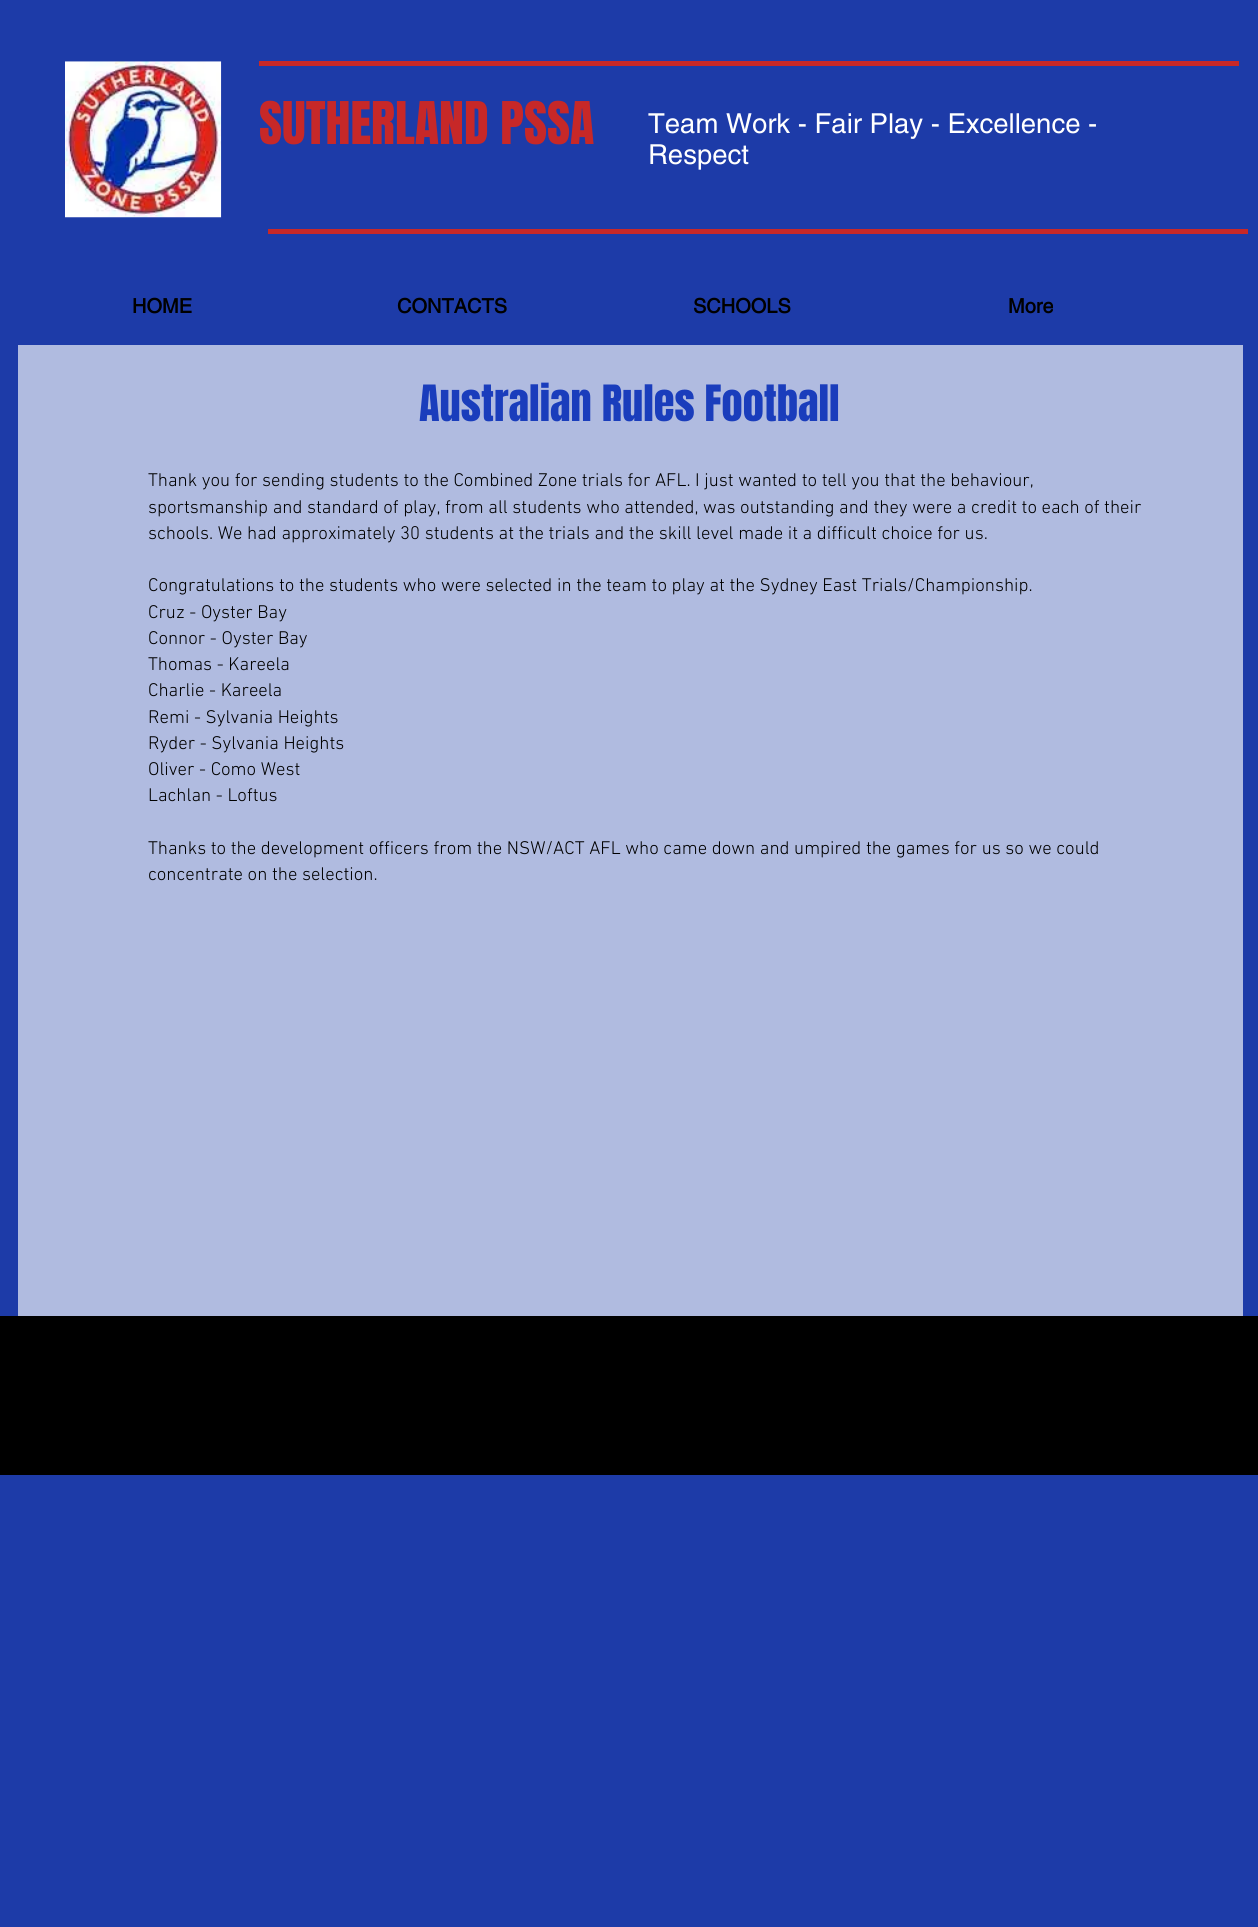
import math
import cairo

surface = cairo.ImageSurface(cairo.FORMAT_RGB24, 1258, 1927)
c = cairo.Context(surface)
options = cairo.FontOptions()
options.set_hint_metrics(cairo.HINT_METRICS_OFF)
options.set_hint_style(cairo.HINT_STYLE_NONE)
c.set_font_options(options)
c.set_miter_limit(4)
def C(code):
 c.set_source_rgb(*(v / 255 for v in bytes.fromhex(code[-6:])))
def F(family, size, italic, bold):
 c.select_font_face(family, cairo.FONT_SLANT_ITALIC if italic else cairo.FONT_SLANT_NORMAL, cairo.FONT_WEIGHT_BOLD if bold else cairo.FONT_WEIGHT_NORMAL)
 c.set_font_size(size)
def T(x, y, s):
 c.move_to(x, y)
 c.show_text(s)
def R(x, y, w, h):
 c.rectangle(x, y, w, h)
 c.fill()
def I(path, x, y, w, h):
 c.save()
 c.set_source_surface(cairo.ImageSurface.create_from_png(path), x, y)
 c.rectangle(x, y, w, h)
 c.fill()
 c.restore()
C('1d3ba8')
c.paint()
I('1.png',65,61,157,157)
C('c72828')
R(259,61,980,5)
F('Anton',50,0,0)
T(259,144,'SUTHERLAND PSSA')
F('helvetica',27.5,0,0)
C('ffffff')
T(648,133,'Team Work - Fair Play - Excellence -')
T(648,164,'Respect')
C('c72828')
R(268,229,980,5)
F('helvetica',20,0,1)
C('000000')
T(132,313,'HOME')
T(397,313,'CONTACTS')
T(693,313,'SCHOOLS')
T(1008,313,'More')
C('b0bbe0')
R(18,345,1225,971)
F('Anton',42.5,0,0)
C('1a3dbc')
T(419,421,'Australian Rules Football')
F('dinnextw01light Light',18.75,0,0)
C('000000')
T(148,486,'Thank you for sending students to the Combined Zone trials for AFL. I just wanted to tell you that the behaviour,')
T(148,513,'sportsmanship and standard of play, from all students who attended, was outstanding and they were a credit to each of their')
T(148,539,'schools. We had approximately 30 students at the trials and the skill level made it a difficult choice for us.')
T(148,591,'Congratulations to the students who were selected in the team to play at the Sydney East Trials/Championship.')
T(148,618,'Cruz - Oyster Bay')
T(148,644,'Connor - Oyster Bay')
T(148,670,'Thomas - Kareela')
T(148,696,'Charlie - Kareela')
T(148,723,'Remi - Sylvania Heights')
T(148,749,'Ryder - Sylvania Heights')
T(148,775,'Oliver - Como West')
T(148,801,'Lachlan - Loftus')
T(148,854,'Thanks to the development officers from the NSW/ACT AFL who came down and umpired the games for us so we could')
T(148,880,'concentrate on the selection.')
R(0,1316,1258,159)
surface.write_to_png('o.png')
